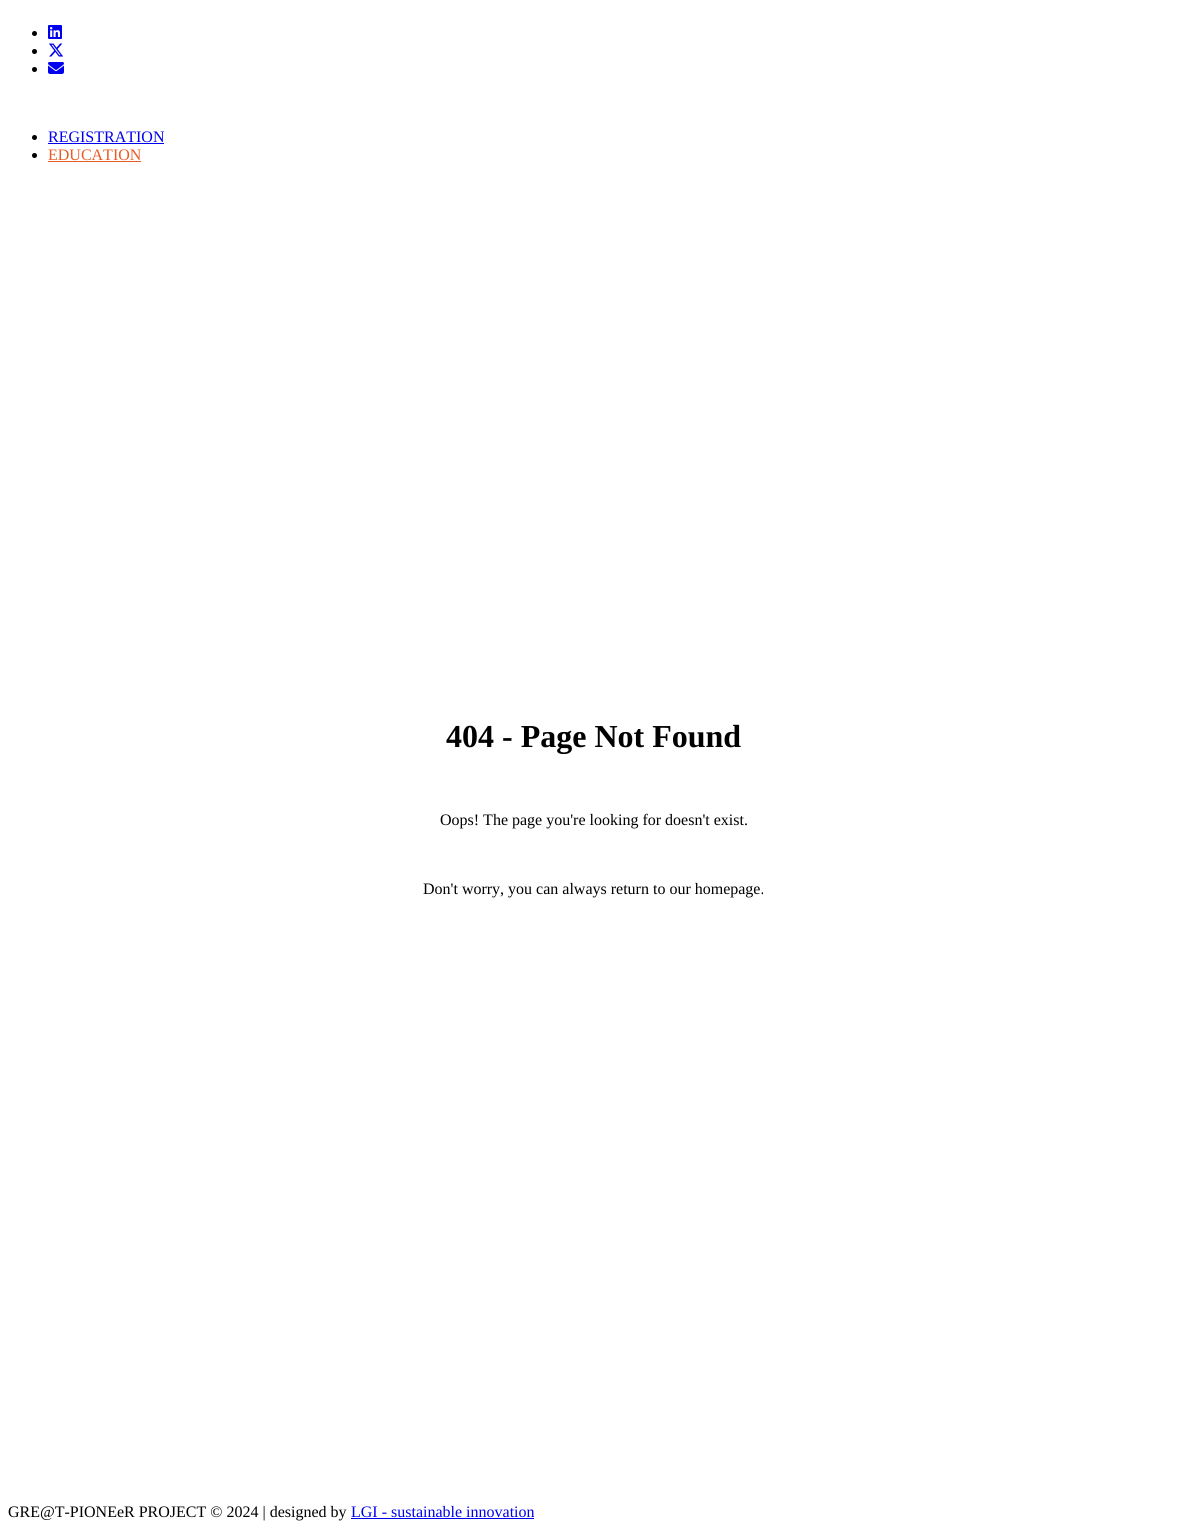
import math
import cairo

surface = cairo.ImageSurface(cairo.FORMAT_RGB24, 1188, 1529)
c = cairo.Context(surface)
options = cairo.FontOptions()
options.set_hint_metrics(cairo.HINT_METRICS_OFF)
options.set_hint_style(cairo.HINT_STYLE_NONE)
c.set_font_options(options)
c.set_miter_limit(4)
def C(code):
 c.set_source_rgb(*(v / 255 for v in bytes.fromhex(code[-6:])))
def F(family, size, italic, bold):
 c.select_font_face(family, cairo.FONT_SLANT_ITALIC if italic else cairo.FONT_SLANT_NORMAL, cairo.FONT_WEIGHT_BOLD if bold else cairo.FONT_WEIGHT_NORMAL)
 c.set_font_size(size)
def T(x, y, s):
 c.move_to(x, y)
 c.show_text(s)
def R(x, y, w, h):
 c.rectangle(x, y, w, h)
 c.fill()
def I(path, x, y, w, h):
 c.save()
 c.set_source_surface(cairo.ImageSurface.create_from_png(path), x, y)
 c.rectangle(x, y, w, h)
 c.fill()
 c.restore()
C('ffffff')
c.paint()
C('000000')
c.arc(34.5,33.5,2.5,0,2 * math.pi)
c.fill()
I('1.png',48,25,14,14)
c.arc(34.5,51.5,2.5,0,2 * math.pi)
c.fill()
I('2.png',49,43,15,14)
c.arc(34.5,69.5,2.5,0,2 * math.pi)
c.fill()
I('3.png',48,62,16,12)
c.arc(34.5,137.5,2.5,0,2 * math.pi)
c.fill()
F('Liberation Serif',16,0,0)
C('0000ee')
T(48,142,'REGISTRATION')
R(48,143,116,1)
C('000000')
c.new_path()
c.arc(34.5,155.5,2.5,0,2 * math.pi)
c.fill()
C('e95a26')
T(48,160,'EDUCATION')
R(48,161,93,1)
F('Liberation Serif',32,0,1)
C('000000')
T(446,747,'404 - Page Not Found')
F('Liberation Serif',16,0,0)
T(440,825,'Oops! The page you\'re looking for doesn\'t exist.')
T(423,894,'Don\'t worry, you can always return to our homepage.')
T(8,1517,'GRE@T-PIONEeR PROJECT © 2024 | designed by')
C('0000ee')
T(351,1517,'LGI - sustainable innovation')
R(351,1518,183,1)
surface.write_to_png('o.png')
